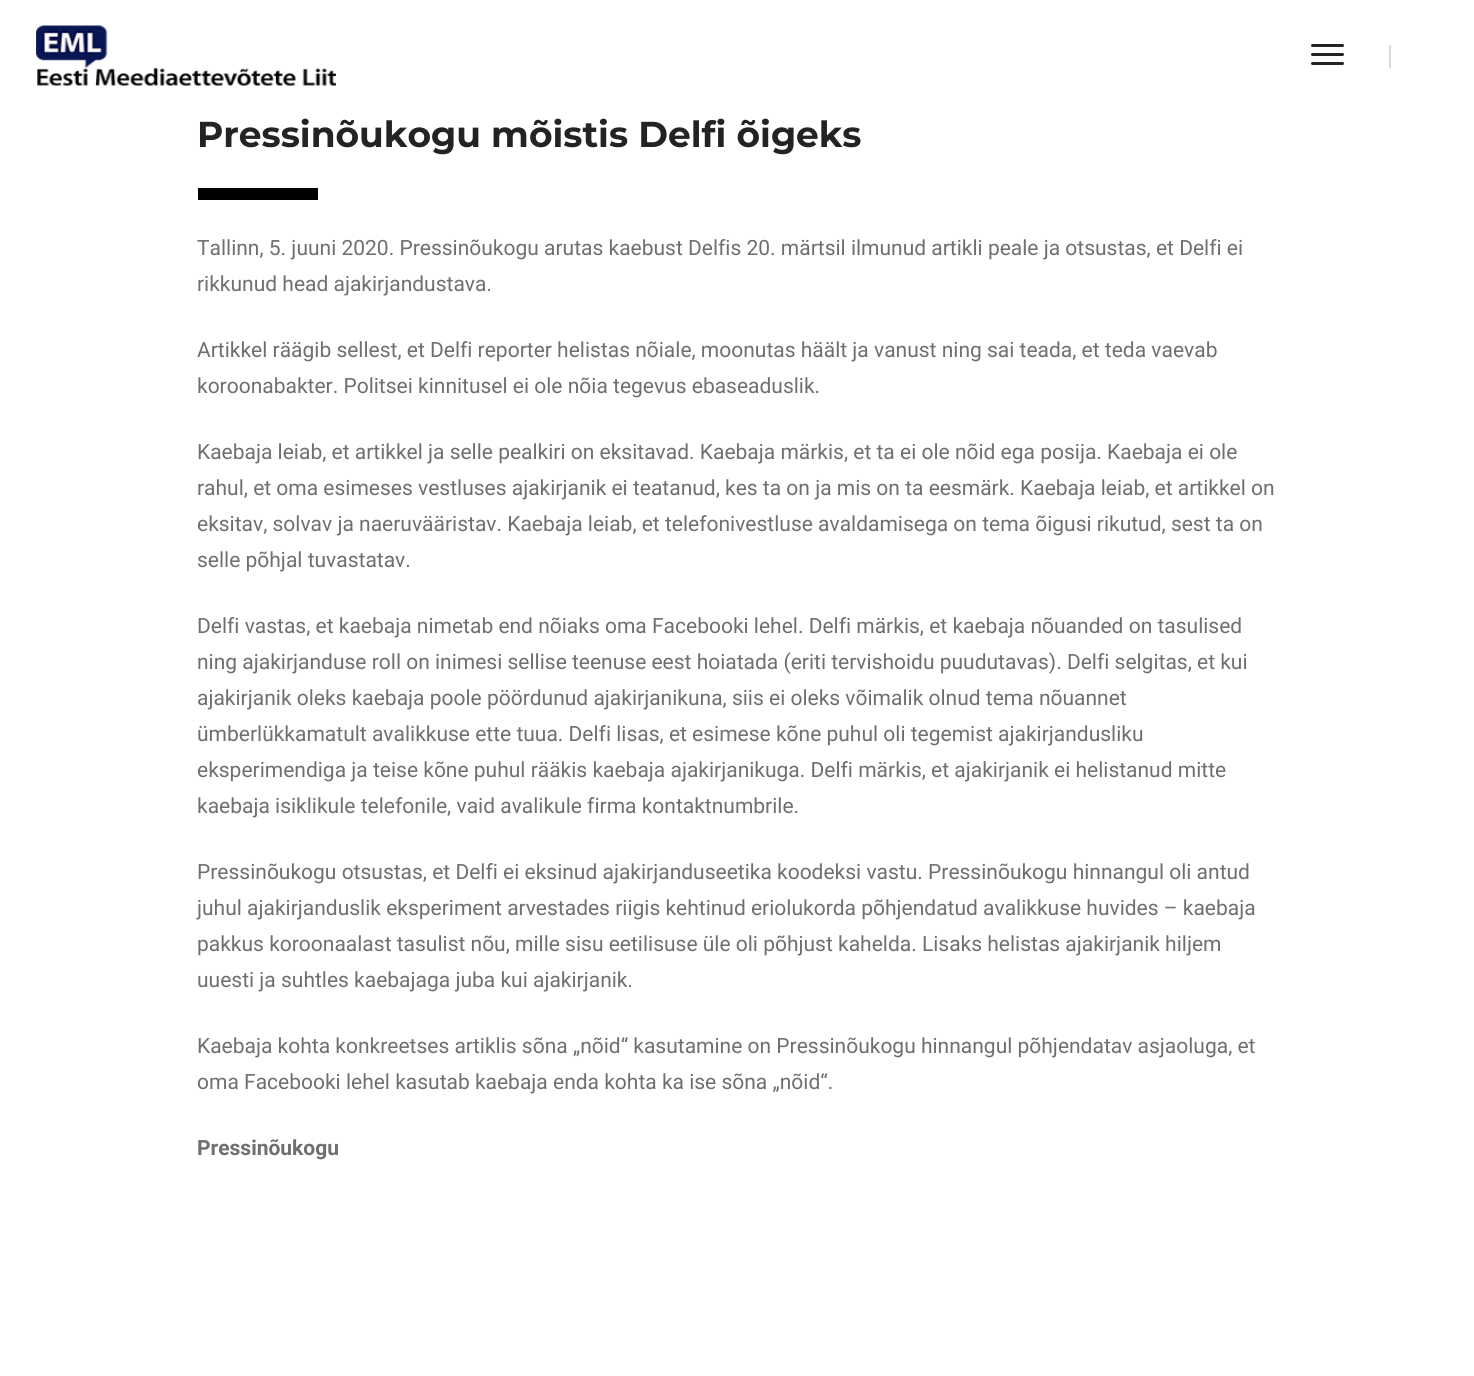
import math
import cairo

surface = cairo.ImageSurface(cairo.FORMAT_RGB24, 1474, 1376)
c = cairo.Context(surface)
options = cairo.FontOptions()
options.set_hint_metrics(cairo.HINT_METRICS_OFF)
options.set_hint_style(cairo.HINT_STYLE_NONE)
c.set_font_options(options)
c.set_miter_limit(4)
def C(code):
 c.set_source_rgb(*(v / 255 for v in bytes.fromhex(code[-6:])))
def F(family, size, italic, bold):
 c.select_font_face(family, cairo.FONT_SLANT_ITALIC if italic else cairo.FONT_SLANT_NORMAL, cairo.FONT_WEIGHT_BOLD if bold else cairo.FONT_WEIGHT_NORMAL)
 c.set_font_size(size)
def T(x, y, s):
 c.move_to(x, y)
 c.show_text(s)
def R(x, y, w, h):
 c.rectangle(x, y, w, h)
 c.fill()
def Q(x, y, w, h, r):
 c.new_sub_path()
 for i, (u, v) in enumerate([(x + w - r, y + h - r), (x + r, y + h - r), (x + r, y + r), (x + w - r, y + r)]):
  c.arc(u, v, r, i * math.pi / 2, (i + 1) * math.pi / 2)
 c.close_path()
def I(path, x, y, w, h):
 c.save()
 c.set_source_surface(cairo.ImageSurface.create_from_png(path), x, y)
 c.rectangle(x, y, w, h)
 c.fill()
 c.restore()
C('ffffff')
c.paint()
I('1.png',36,25,300,61)
C('232323')
Q(1311,44,33,3,1.5)
c.fill()
Q(1311,53,33,3,1.5)
c.fill()
Q(1311,62,33,3,1.5)
c.fill()
C('d9d9d9')
R(1389,45,2,23)
F('Montserrat',36,0,1)
C('232323')
T(197,147,'Pressinõukogu mõistis Delfi õigeks')
C('000000')
R(198,188,120,12)
F('Roboto',21,0,0)
C('6f6f6f')
T(197,255,'Tallinn, 5. juuni 2020. Pressinõukogu arutas kaebust Delfis 20. märtsil ilmunud artikli peale ja otsustas, et Delfi ei')
T(197,291,'rikkunud head ajakirjandustava.')
T(197,357,'Artikkel räägib sellest, et Delfi reporter helistas nõiale, moonutas häält ja vanust ning sai teada, et teda vaevab')
T(197,393,'koroonabakter. Politsei kinnitusel ei ole nõia tegevus ebaseaduslik.')
T(197,459,'Kaebaja leiab, et artikkel ja selle pealkiri on eksitavad. Kaebaja märkis, et ta ei ole nõid ega posija. Kaebaja ei ole')
T(197,495,'rahul, et oma esimeses vestluses ajakirjanik ei teatanud, kes ta on ja mis on ta eesmärk. Kaebaja leiab, et artikkel on')
T(197,531,'eksitav, solvav ja naeruvääristav. Kaebaja leiab, et telefonivestluse avaldamisega on tema õigusi rikutud, sest ta on')
T(197,567,'selle põhjal tuvastatav.')
T(197,633,'Delfi vastas, et kaebaja nimetab end nõiaks oma Facebooki lehel. Delfi märkis, et kaebaja nõuanded on tasulised')
T(197,669,'ning ajakirjanduse roll on inimesi sellise teenuse eest hoiatada (eriti tervishoidu puudutavas). Delfi selgitas, et kui')
T(197,705,'ajakirjanik oleks kaebaja poole pöördunud ajakirjanikuna, siis ei oleks võimalik olnud tema nõuannet')
T(197,741,'ümberlükkamatult avalikkuse ette tuua. Delfi lisas, et esimese kõne puhul oli tegemist ajakirjandusliku')
T(197,777,'eksperimendiga ja teise kõne puhul rääkis kaebaja ajakirjanikuga. Delfi märkis, et ajakirjanik ei helistanud mitte')
T(197,813,'kaebaja isiklikule telefonile, vaid avalikule firma kontaktnumbrile.')
T(197,879,'Pressinõukogu otsustas, et Delfi ei eksinud ajakirjanduseetika koodeksi vastu. Pressinõukogu hinnangul oli antud')
T(197,915,'juhul ajakirjanduslik eksperiment arvestades riigis kehtinud eriolukorda põhjendatud avalikkuse huvides – kaebaja')
T(197,951,'pakkus koroonaalast tasulist nõu, mille sisu eetilisuse üle oli põhjust kahelda. Lisaks helistas ajakirjanik hiljem')
T(197,987,'uuesti ja suhtles kaebajaga juba kui ajakirjanik.')
T(197,1053,'Kaebaja kohta konkreetses artiklis sõna „nõid“ kasutamine on Pressinõukogu hinnangul põhjendatav asjaoluga, et')
T(197,1089,'oma Facebooki lehel kasutab kaebaja enda kohta ka ise sõna „nõid“.')
F('Roboto',21,0,1)
T(197,1155,'Pressinõukogu')
surface.write_to_png('o.png')
